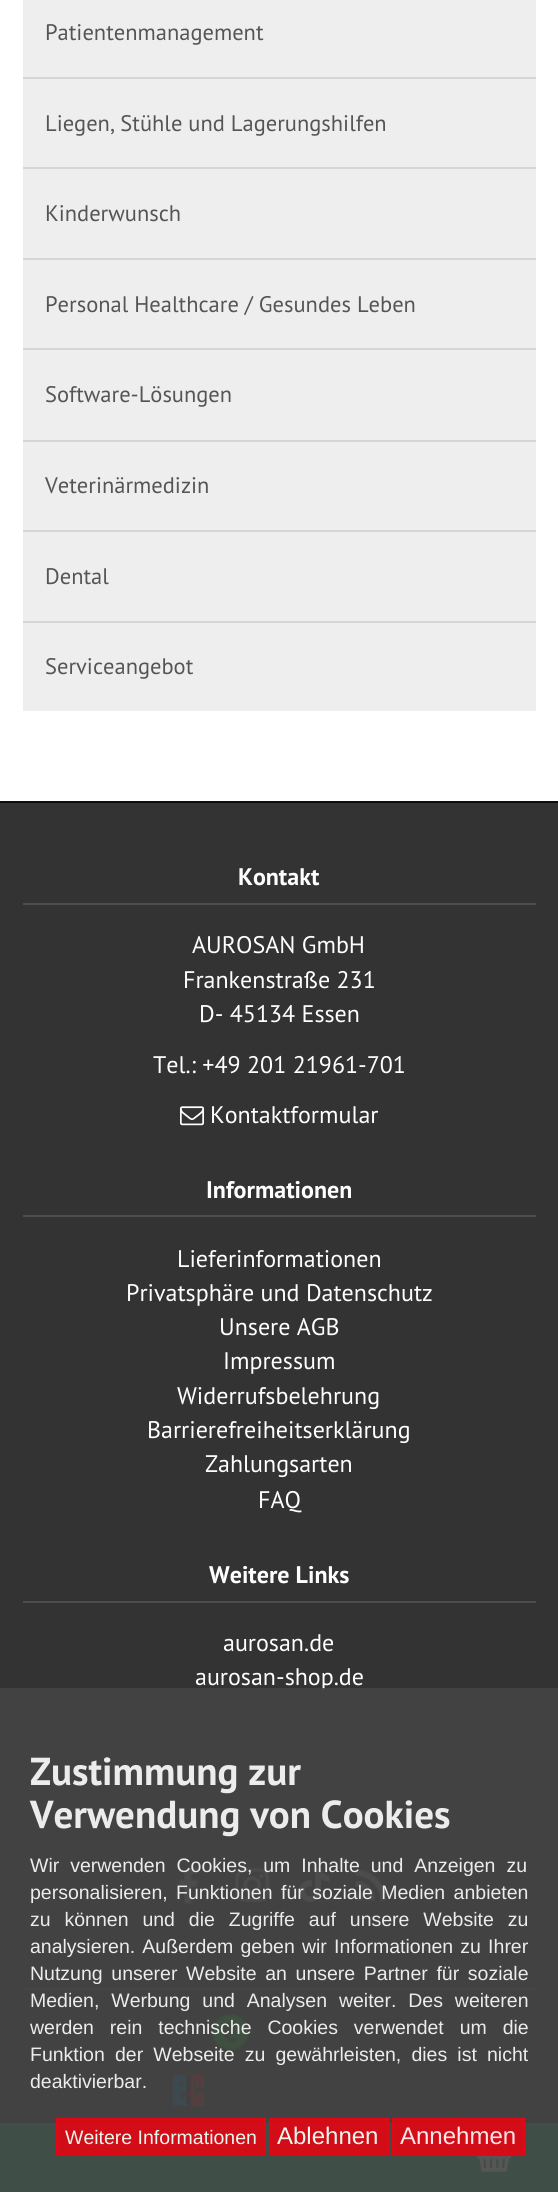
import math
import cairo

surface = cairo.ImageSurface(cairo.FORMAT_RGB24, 558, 2192)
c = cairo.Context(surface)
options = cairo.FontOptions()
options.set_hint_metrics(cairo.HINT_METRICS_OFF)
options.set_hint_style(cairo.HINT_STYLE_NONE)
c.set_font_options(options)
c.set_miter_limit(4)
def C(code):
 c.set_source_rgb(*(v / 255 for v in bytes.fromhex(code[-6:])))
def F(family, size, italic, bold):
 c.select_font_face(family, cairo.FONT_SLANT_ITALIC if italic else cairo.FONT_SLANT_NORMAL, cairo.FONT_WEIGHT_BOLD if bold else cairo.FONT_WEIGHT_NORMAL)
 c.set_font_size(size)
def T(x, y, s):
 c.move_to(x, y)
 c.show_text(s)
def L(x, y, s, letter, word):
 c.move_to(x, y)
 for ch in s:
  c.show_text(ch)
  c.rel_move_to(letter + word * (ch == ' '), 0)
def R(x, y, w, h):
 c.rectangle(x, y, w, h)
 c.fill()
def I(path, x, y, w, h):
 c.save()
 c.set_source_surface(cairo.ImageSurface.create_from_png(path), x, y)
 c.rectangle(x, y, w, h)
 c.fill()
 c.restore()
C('ffffff')
c.paint()
C('eeeeee')
R(23,0,513,77)
F('PT Sans',22.5,0,0)
C('555555')
T(45,40,'Patientenmanagement')
C('eeeeee')
R(23,79,513,88)
C('d5d5d5')
R(23,77,513,2)
C('555555')
T(45,131,'Liegen, Stühle und Lagerungshilfen')
C('eeeeee')
R(23,169,513,89)
C('d5d5d5')
R(23,167,513,2)
C('555555')
T(45,221,'Kinderwunsch')
C('eeeeee')
R(23,260,513,88)
C('d5d5d5')
R(23,258,513,2)
C('555555')
T(45,312,'Personal Healthcare / Gesundes Leben')
C('eeeeee')
R(23,350,513,90)
C('d5d5d5')
R(23,348,513,2)
C('555555')
T(45,402,'Software-Lösungen')
C('eeeeee')
R(23,442,513,88)
C('d5d5d5')
R(23,440,513,2)
C('555555')
T(45,493,'Veterinärmedizin')
C('eeeeee')
R(23,532,513,89)
C('d5d5d5')
R(23,530,513,2)
C('555555')
T(45,584,'Dental')
C('eeeeee')
R(23,623,513,88)
C('d5d5d5')
R(23,621,513,2)
C('555555')
T(45,674,'Serviceangebot')
C('333333')
R(0,803,558,1320)
C('0d0d0d')
R(0,801,558,2)
C('4d4d4d')
R(23,903,513,2)
F('PT Sans',24,0,1)
C('ffffff')
T(238,885,'Kontakt')
F('PT Sans',24,0,0)
T(192,953,'AUROSAN GmbH')
T(183,988,'Frankenstraße 231')
T(199,1022,'D- 45134 Essen')
T(153,1073,'Tel.: +49 201 21961-701')
I('1.png',180,1106,24,20)
T(210,1123,'Kontaktformular')
C('4d4d4d')
R(23,1215,513,2)
F('PT Sans',24,0,1)
C('ffffff')
T(206,1198,'Informationen')
F('PT Sans',24,0,0)
T(177,1267,'Lieferinformationen')
T(126,1301,'Privatsphäre und Datenschutz')
T(219,1335,'Unsere AGB')
T(223,1369,'Impressum')
T(177,1404,'Widerrufsbelehrung')
T(147,1438,'Barrierefreiheitserklärung')
T(205,1472,'Zahlungsarten')
T(258,1508,'FAQ')
C('4d4d4d')
R(23,1601,513,2)
F('PT Sans',24,0,1)
C('ffffff')
T(209,1583,'Weitere Links')
F('PT Sans',24,0,0)
T(223,1651,'aurosan.de')
T(195,1685,'aurosan-shop.de')
I('2.png',178,1866,21,38)
I('3.png',235,1867,36,36)
I('4.png',299,1868,31,34)
I('5.png',354,1868,34,34)
C('4d4d4d')
R(23,1988,513,2)
I('6.png',212,2014,36,36)
I('7.png',172,2074,32,32)
C('13ae58')
R(0,2123,558,69)
I('8.png',477,2141,35,31)
c.set_source_rgba(0.267,0.267,0.267,0.9)
R(0,1688,558,504)
F('PT Sans',39,0,1)
C('ececec')
T(30,1785,'Zustimmung zur')
T(30,1828,'Verwendung von Cookies')
F('Liberation Sans',19.5,0,0)
L(30,1872,'Wir verwenden Cookies, um Inhalte und Anzeigen zu',0,5.5)
L(30,1899,'personalisieren, Funktionen für soziale Medien anbieten',0,3)
L(30,1926,'zu können und die Zugriffe auf unsere Website zu',0,8.5)
L(30,1953,'analysieren. Außerdem geben wir Informationen zu Ihrer',0,1.75)
L(30,1980,'Nutzung unserer Website an unsere Partner für soziale',0,3.25)
L(30,2007,'Medien, Werbung und Analysen weiter. Des weiteren',0,6.5)
L(30,2034,'werden rein technische Cookies verwendet um die',0,10.5)
L(30,2061,'Funktion der Webseite zu gewährleisten, dies ist nicht',0,4.75)
T(30,2088,'deaktivierbar.')
c.set_source_rgba(0.89,0.024,0.075,0.9)
c.rectangle(57,2119,208,36)
c.fill_preserve()
C('e10714')
c.stroke()
C('e7f7ee')
T(65,2144,'Weitere Informationen')
c.set_source_rgba(0.89,0.024,0.075,0.9)
c.rectangle(270,2119,118,36)
c.fill_preserve()
C('e10713')
c.stroke()
F('Liberation Sans',24,0,0)
C('e7f7ee')
T(277,2144,'Ablehnen')
c.set_source_rgba(0.89,0.024,0.075,0.9)
c.rectangle(393,2119,131,36)
c.fill_preserve()
C('e10714')
c.stroke()
C('fbe7e8')
T(400,2144,'Annehmen')
surface.write_to_png('o.png')
